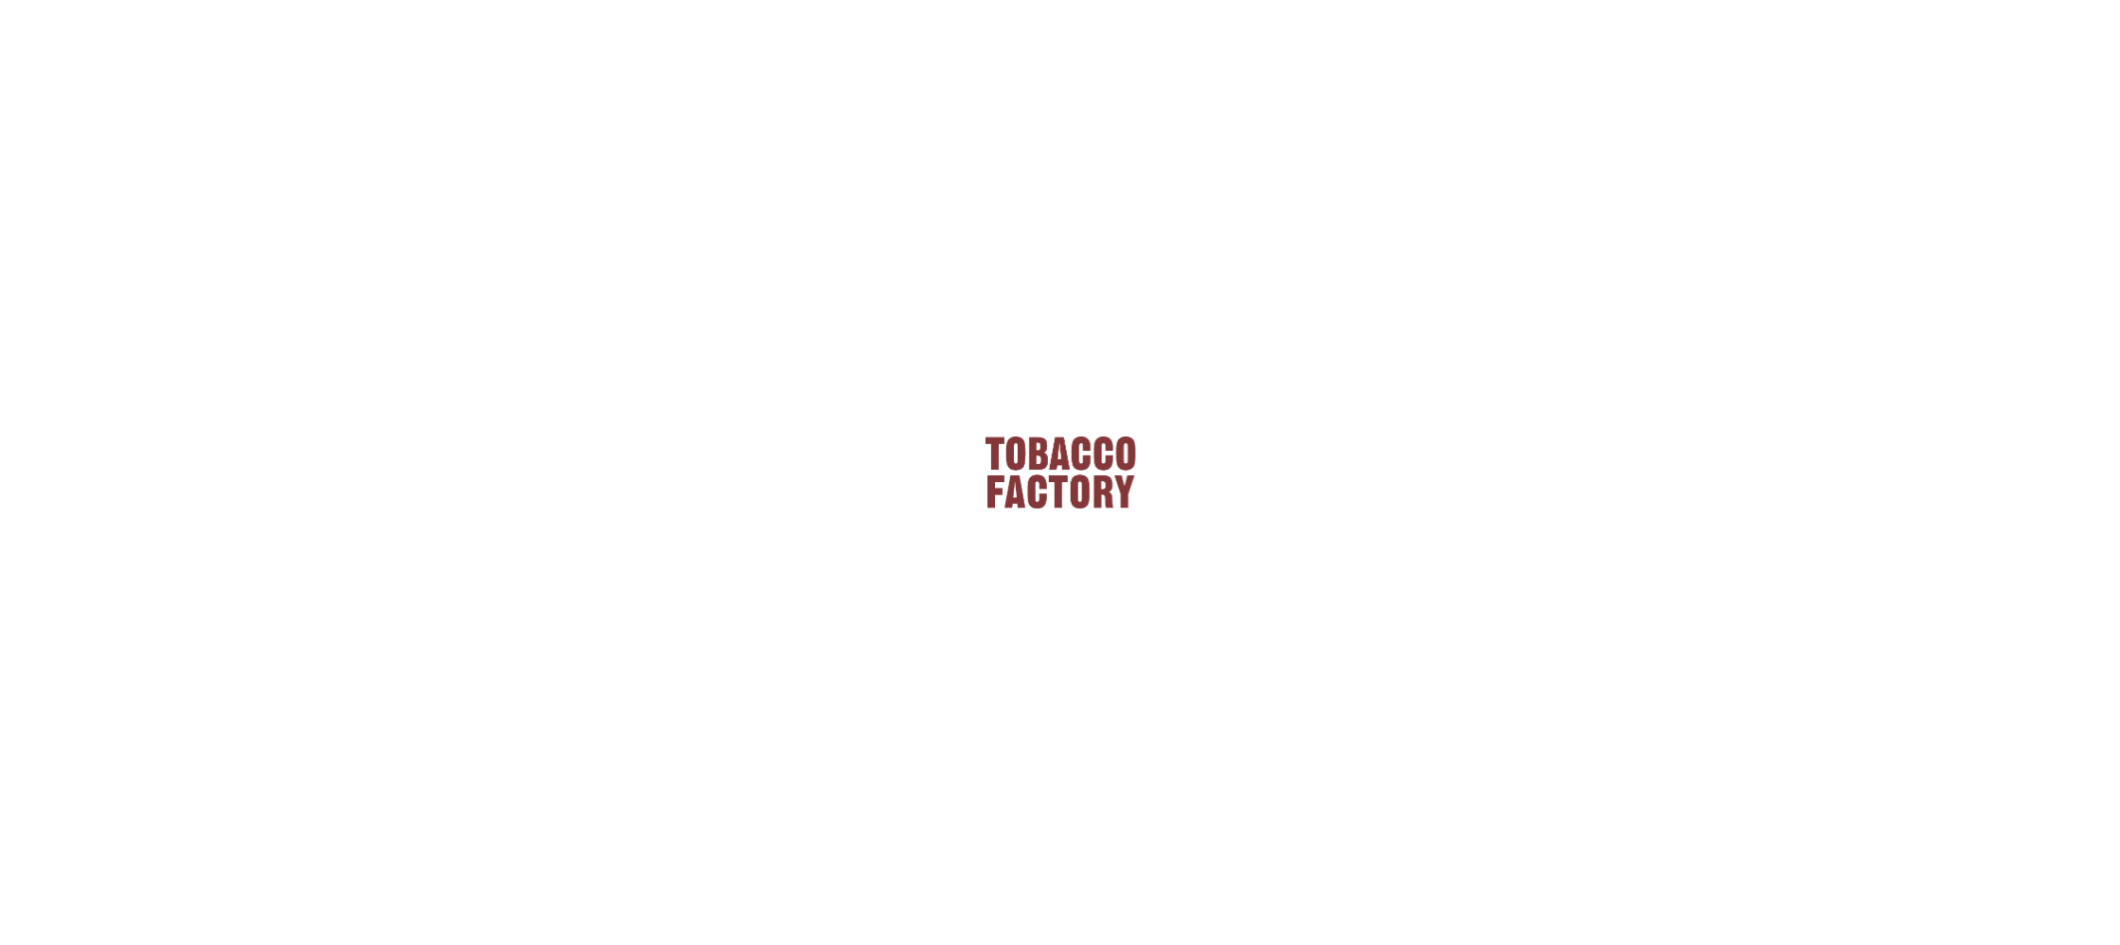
import math
import cairo

surface = cairo.ImageSurface(cairo.FORMAT_RGB24, 2120, 945)
c = cairo.Context(surface)
options = cairo.FontOptions()
options.set_hint_metrics(cairo.HINT_METRICS_OFF)
options.set_hint_style(cairo.HINT_STYLE_NONE)
c.set_font_options(options)
c.set_miter_limit(4)
def C(code):
 c.set_source_rgb(*(v / 255 for v in bytes.fromhex(code[-6:])))
def I(path, x, y, w, h):
 c.save()
 c.set_source_surface(cairo.ImageSurface.create_from_png(path), x, y)
 c.rectangle(x, y, w, h)
 c.fill()
 c.restore()
C('ffffff')
c.paint()
I('1.png',985,436,151,73)
surface.write_to_png('o.png')
